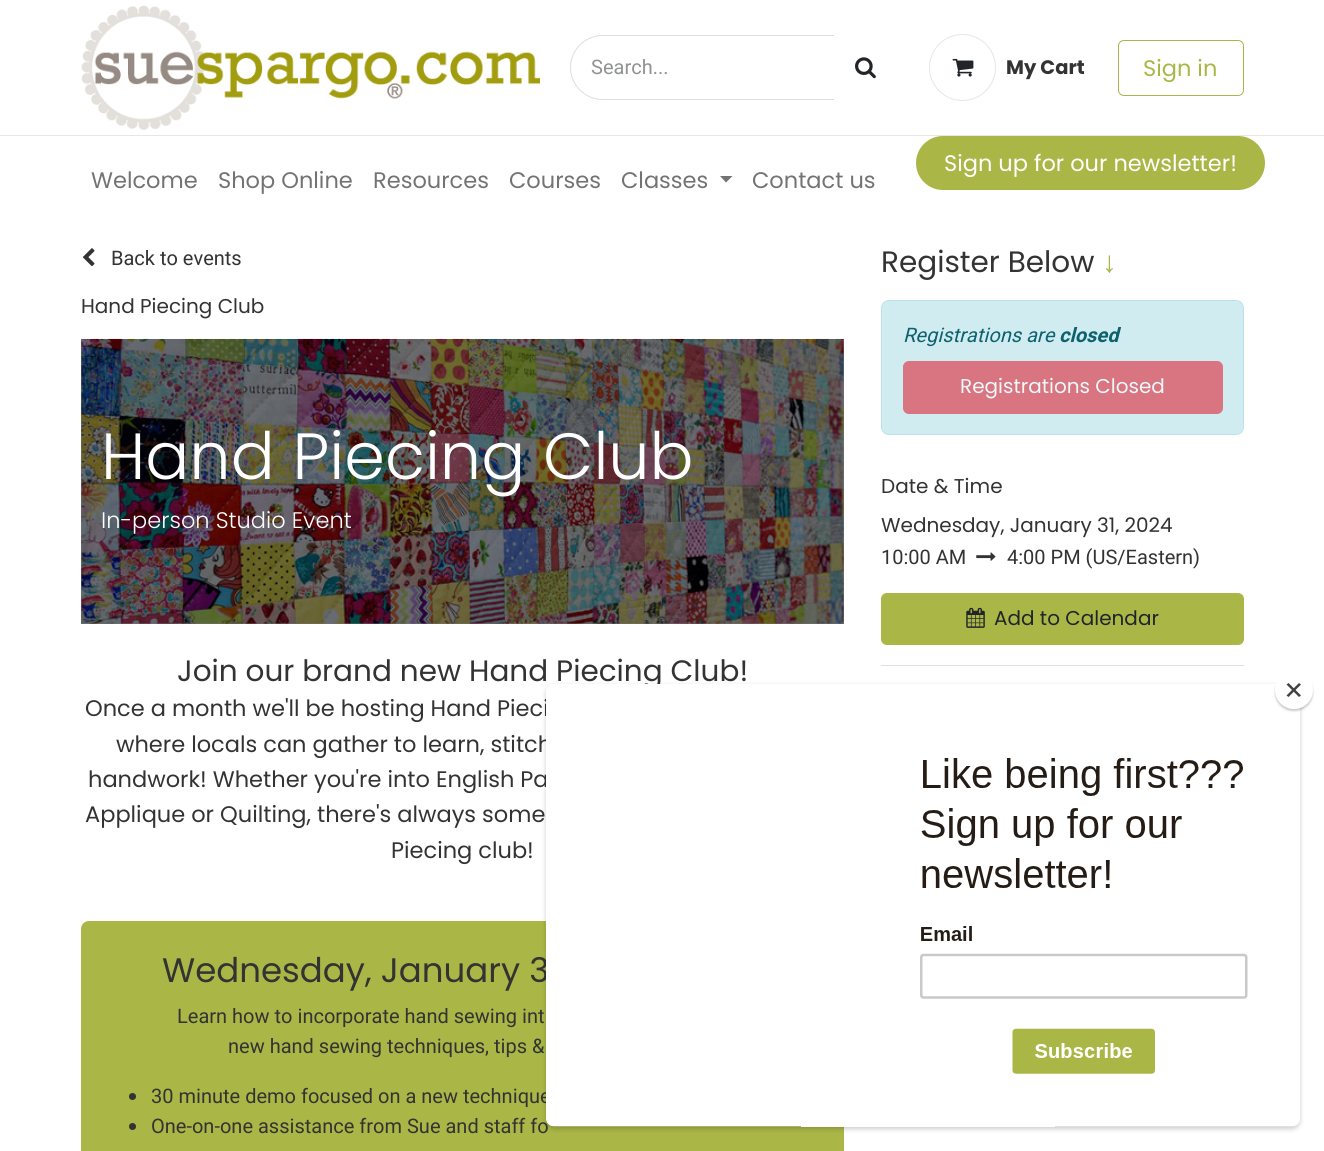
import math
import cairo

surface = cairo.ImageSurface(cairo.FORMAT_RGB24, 1324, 1151)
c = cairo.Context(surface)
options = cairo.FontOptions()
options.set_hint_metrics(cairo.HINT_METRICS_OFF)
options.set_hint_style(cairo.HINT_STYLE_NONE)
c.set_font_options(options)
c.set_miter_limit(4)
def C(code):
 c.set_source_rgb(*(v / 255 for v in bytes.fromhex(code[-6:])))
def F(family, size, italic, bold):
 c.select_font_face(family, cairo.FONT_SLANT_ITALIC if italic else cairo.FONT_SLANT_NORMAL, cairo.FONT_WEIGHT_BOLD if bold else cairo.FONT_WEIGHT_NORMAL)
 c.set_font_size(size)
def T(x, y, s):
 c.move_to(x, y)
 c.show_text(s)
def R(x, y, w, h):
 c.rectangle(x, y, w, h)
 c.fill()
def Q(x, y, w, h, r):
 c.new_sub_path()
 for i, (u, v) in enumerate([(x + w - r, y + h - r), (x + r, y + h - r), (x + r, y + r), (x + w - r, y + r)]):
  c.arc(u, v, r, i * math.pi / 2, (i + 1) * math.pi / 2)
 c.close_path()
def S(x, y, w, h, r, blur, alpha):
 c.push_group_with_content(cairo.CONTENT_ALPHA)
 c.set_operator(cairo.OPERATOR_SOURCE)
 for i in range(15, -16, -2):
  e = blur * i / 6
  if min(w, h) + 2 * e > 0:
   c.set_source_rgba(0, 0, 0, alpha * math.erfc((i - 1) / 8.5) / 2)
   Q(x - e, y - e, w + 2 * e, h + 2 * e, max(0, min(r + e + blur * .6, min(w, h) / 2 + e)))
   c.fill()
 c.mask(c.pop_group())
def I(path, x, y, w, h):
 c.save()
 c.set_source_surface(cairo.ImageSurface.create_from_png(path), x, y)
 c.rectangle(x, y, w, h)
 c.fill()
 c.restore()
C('ffffff')
c.paint()
C('757575')
R(81,339,763,285)
I('1.png',81,5,459,125)
c.new_path()
c.move_to(602.5,35.5)
c.line_to(834.5,35.5)
c.line_to(834.5,99.5)
c.line_to(602.5,99.5)
c.curve_to(585,99.5,570.5,85,570.5,67.5)
c.curve_to(570.5,50,585,35.5,602.5,35.5)
c.close_path()
C('dededf')
c.set_line_width(1)
c.stroke()
F('Heebo',20,0,0)
C('909294')
T(591,74,'Search...')
C('ffffff')
c.new_path()
c.move_to(834,35)
c.line_to(865.5,35)
c.curve_to(883.5,35,898,49.5,898,67.5)
c.curve_to(898,85.5,883.5,100,865.5,100)
c.line_to(834,100)
c.close_path()
c.fill()
I('2.png',855,57,21,22)
c.arc(962.5,67.5,33,0,2 * math.pi)
C('e6e6e6')
c.stroke()
I('3.png',952,58,22,19)
F('Poppins',19.5,0,1)
C('333333')
T(1006,74,'My Cart')
Q(1118.5,40.5,125,55,5.5)
C('aab747')
c.stroke()
F('Poppins',22.5,0,0)
T(1143,76,'Sign in')
C('e6e6e6')
R(0,135,1324,1)
C('aab747')
Q(916,136,349,54,27)
c.fill()
C('ffffff')
T(944,171,'Sign up for our newsletter!')
C('737373')
T(91,188,'Welcome')
T(218,188,'Shop Online')
T(373,188,'Resources')
T(509,188,'Courses')
T(621,188,'Classes')
c.new_path()
c.move_to(720,176)
c.line_to(732.5,176)
c.line_to(726,182.5)
c.close_path()
c.fill()
T(752,188,'Contact us')
I('4.png',83,248,12,19)
F('Heebo',20,0,0)
C('333333')
T(111,265,'Back to events')
F('Poppins',20,0,0)
T(81,313,'Hand Piecing Club')
I('5.png',81,338,763,286)
F('Poppins Light',65.25,0,0)
C('ffffff')
T(101,479,'Hand Piecing Club')
F('Poppins Light',22.5,0,0)
T(101,528,'In-person Studio Event')
F('Poppins',29.5,0,0)
C('333333')
T(177,681,'Join our brand new Hand Piecing Club!')
F('Poppins',22.5,0,0)
T(85,716,'Once a month we\'ll be hosting Hand Pieci')
T(116,752,'where locals can gather to learn, stitch')
T(88,787,'handwork! Whether you\'re into English Pa')
T(85,822,'Applique or Quilting, there\'s always some')
T(391,858,'Piecing club!')
C('aab747')
c.new_path()
c.move_to(89,921)
c.line_to(836,921)
c.curve_to(840.5,921,844,924.5,844,929)
c.line_to(844,1151)
c.line_to(81,1151)
c.line_to(81,929)
c.curve_to(81,924.5,84.5,921,89,921)
c.close_path()
c.fill()
F('Poppins',34,0,0)
C('333333')
T(162,982,'Wednesday, January 3')
F('Heebo',20,0,0)
T(177,1023,'Learn how to incorporate hand sewing int')
T(228,1053,'new hand sewing techniques, tips &')
c.new_path()
c.arc(132.5,1096.5,3.5,0,2 * math.pi)
c.fill()
T(151,1103,'30 minute demo focused on a new technique')
c.new_path()
c.arc(132.5,1126.5,3.5,0,2 * math.pi)
c.fill()
T(151,1133,'One-on-one assistance from Sue and staff fo')
F('Poppins',29.5,0,0)
T(881,272,'Register Below')
F('Liberation Sans',29.5,0,1)
C('aab747')
T(1102,272,'↓')
C('d1ecf1')
Q(881.5,300.5,362,134,7.5)
c.fill_preserve()
C('b9e3ea')
c.stroke()
F('Heebo',20,1,0)
C('0e616e')
T(903,342,'Registrations are')
F('Heebo',20,1,1)
T(1059,342,'closed')
C('d87581')
Q(903.5,361.5,319,52,5.5)
c.fill_preserve()
c.stroke()
F('Poppins',20,0,0)
C('eff8fa')
T(960,393,'Registrations Closed')
C('e0e0e0')
R(881,665,363,1)
C('333333')
T(881,493,'Date & Time')
T(881,532,'Wednesday, January 31, 2024')
F('Heebo',20,0,0)
T(881,564,'10:00 AM')
I('6.png',976,552,20,9)
T(1007,564,'4:00 PM (US/Eastern)')
C('aab747')
Q(881.5,593.5,362,51,5.5)
c.fill_preserve()
c.stroke()
I('7.png',966,607,19,21)
F('Poppins',20,0,0)
C('212529')
T(994,625,'Add to Calendar')
C('000000')
S(546,686,754,443,8,2.5,.2)
C('ffffff')
Q(546,684,754,442,8)
c.fill()
C('000000')
S(1275,674,38,37,18.5,1,.2)
C('ffffff')
c.arc(1294,690,19,0,2 * math.pi)
c.fill()
C('414141')
c.new_path()
c.move_to(1299,683)
c.line_to(1301,684.5)
c.line_to(1288.5,697)
c.line_to(1286.5,695.5)
c.close_path()
c.fill()
c.new_path()
c.move_to(1286.5,684.5)
c.line_to(1288.5,683)
c.line_to(1301,695.5)
c.line_to(1299,697)
c.close_path()
c.fill()
I('8.png',546,758,754,369)
surface.write_to_png('o.png')
